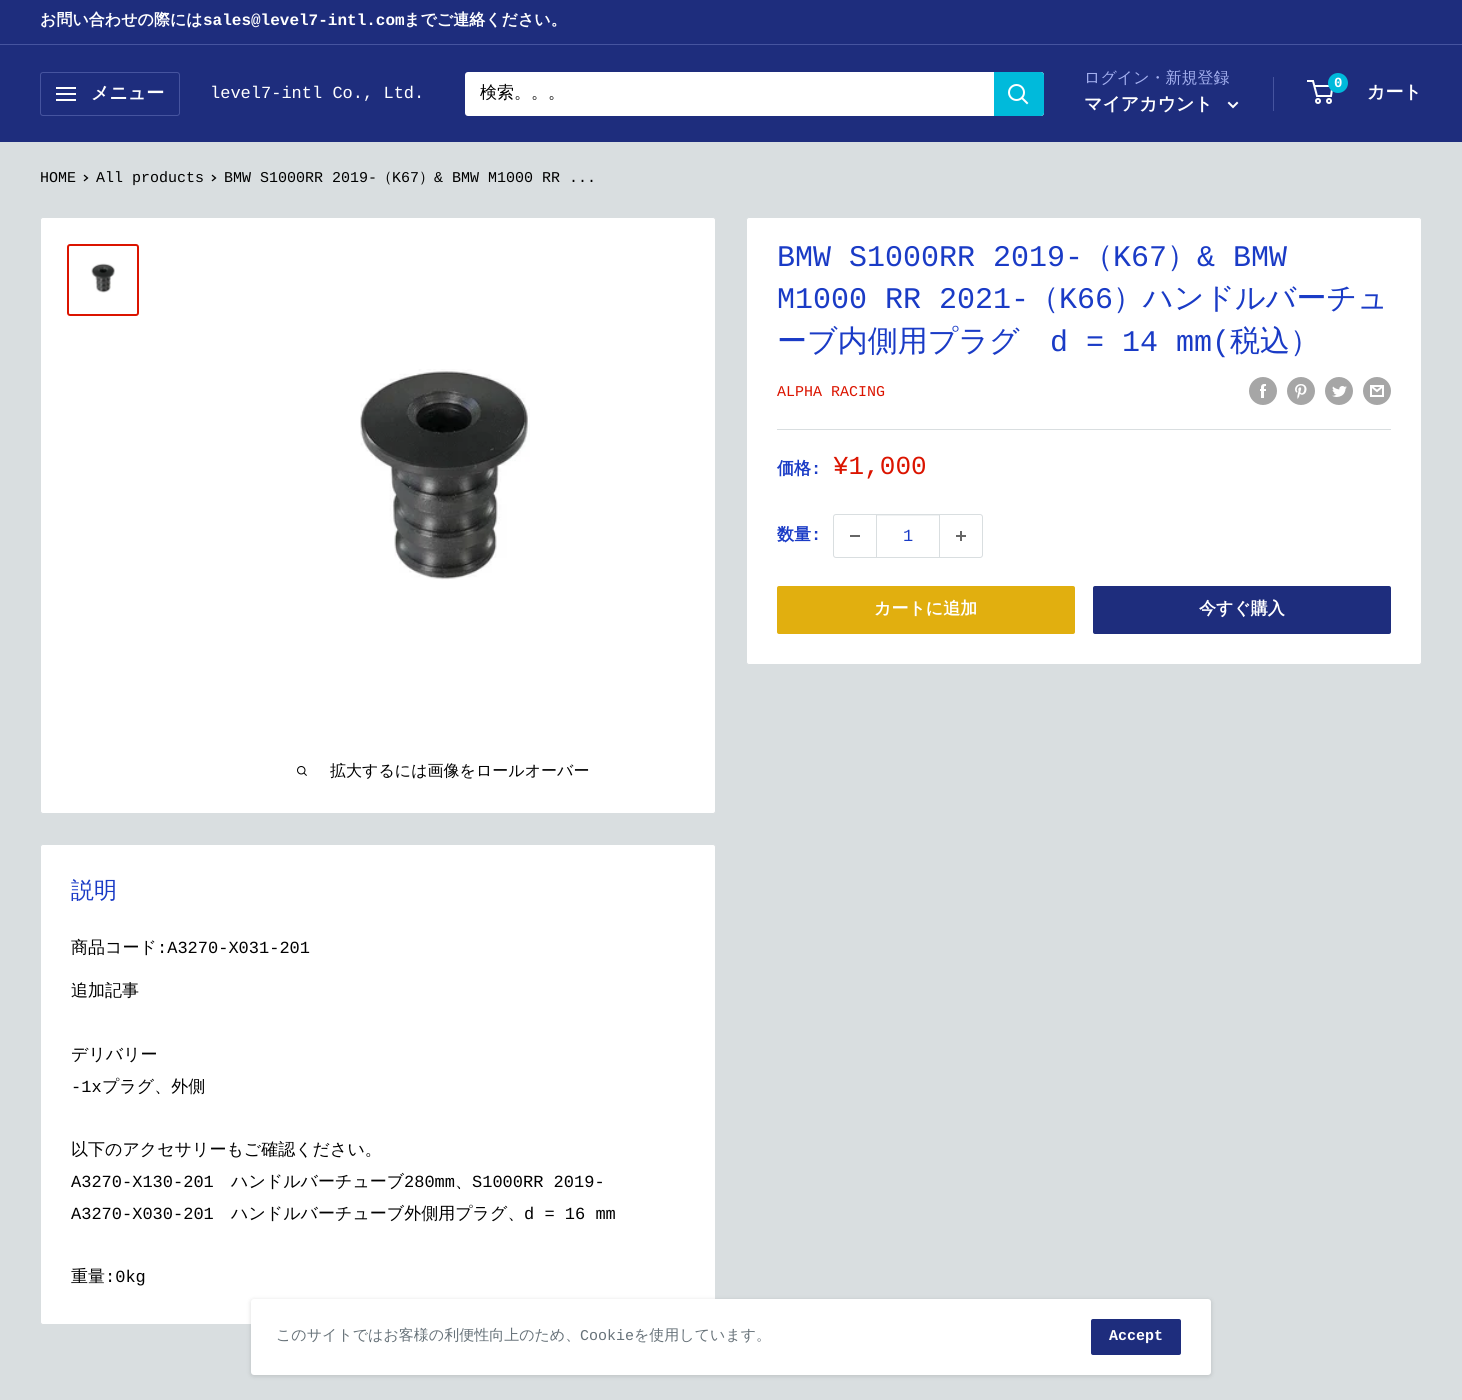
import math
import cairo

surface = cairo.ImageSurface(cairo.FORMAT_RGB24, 1462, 1400)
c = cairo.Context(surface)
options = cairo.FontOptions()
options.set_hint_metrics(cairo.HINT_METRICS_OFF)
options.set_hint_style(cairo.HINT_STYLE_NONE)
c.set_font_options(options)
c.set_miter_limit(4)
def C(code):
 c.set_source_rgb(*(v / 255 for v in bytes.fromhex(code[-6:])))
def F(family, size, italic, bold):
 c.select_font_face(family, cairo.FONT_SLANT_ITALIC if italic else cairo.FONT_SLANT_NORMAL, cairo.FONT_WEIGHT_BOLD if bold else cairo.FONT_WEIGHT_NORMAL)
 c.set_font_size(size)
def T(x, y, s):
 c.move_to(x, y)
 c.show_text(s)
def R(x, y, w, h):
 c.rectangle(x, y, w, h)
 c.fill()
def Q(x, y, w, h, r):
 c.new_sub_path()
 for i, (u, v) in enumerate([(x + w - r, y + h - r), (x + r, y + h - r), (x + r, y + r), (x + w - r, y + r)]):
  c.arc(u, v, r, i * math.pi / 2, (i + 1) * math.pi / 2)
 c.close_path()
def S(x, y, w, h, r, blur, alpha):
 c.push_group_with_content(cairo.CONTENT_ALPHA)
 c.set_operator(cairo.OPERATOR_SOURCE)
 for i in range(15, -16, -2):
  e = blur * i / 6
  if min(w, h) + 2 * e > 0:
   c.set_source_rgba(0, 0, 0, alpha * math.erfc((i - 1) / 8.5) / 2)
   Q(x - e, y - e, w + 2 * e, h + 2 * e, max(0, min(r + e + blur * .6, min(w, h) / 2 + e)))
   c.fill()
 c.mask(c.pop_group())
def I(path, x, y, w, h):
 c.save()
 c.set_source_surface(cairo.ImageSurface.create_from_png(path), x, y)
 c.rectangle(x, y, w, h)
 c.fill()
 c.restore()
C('d9dee0')
c.paint()
C('1e2d7d')
R(0,0,1462,44)
C('46549f')
R(0,44,1462,1)
F('WenQuanYi Zen Hei',16,0,1)
C('ffffff')
T(40,25,'お問い合わせの際には')
F('Liberation Mono',16,0,1)
T(203,25,'sales@level7-intl.com')
F('WenQuanYi Zen Hei',16,0,1)
T(404,25,'までご連絡ください。')
C('1e2d7d')
R(0,45,1462,97)
Q(40.5,72.5,139,43,2.5)
C('46549f')
c.set_line_width(1)
c.stroke()
I('1.png',56,87,20,14)
F('WenQuanYi Zen Hei',18,0,1)
C('ffffff')
T(91,99,'メニュー')
F('Liberation Mono',17,0,0)
T(210,98,'level7-intl Co., Ltd.')
Q(465,72,579,44,3)
c.fill()
F('WenQuanYi Zen Hei Medium',17,0,0)
C('000000')
T(480,98,'検索。。。')
C('00badb')
c.new_path()
c.move_to(994,72)
c.line_to(1041,72)
c.curve_to(1042.5,72,1044,73.5,1044,75)
c.line_to(1044,113)
c.curve_to(1044,114.5,1042.5,116,1041,116)
c.line_to(994,116)
c.close_path()
c.fill()
c.new_path()
c.move_to(1027,103)
c.line_to(1022,98)
C('ffffff')
c.set_line_width(2)
c.set_line_cap(cairo.LINE_CAP_SQUARE)
c.stroke()
c.arc(1016.5,92.5,7.5,0,2 * math.pi)
c.set_line_cap(cairo.LINE_CAP_BUTT)
c.stroke()
F('WenQuanYi Zen Hei Medium',16,0,0)
C('a3afef')
T(1084,83,'ログイン・新規登録')
C('46549f')
R(1273,77,1,34)
F('WenQuanYi Zen Hei',18,0,1)
C('ffffff')
T(1084,110,'マイアカウント')
c.new_path()
c.move_to(1237,103)
c.line_to(1233,107)
c.line_to(1229,103)
c.set_line_cap(cairo.LINE_CAP_SQUARE)
c.stroke()
c.arc(1318,101,2,0,2 * math.pi)
c.set_line_cap(cairo.LINE_CAP_BUTT)
c.stroke()
c.arc(1329,101,2,0,2 * math.pi)
c.stroke()
c.new_path()
c.move_to(1314.5,86)
c.line_to(1332.5,86)
c.line_to(1331,96)
c.line_to(1317,96)
c.line_to(1313,81)
c.line_to(1307,81)
c.stroke()
C('00badb')
c.arc(1338,83,10,0,2 * math.pi)
c.fill()
F('Liberation Mono',14,0,1)
C('ffffff')
T(1334,87,'0')
F('WenQuanYi Zen Hei',18,0,1)
T(1367,98,'カート')
F('Liberation Mono',15,0,0)
C('000000')
T(40,182,'HOME')
c.new_path()
c.move_to(84.5,175.5)
c.line_to(87.5,178)
c.line_to(84.5,180.5)
c.set_line_width(1.3)
c.set_line_cap(cairo.LINE_CAP_SQUARE)
c.stroke()
T(96,182,'All products')
c.new_path()
c.move_to(212.5,175.5)
c.line_to(215.5,178)
c.line_to(212.5,180.5)
c.stroke()
T(224,182,'BMW S1000RR 2019-')
F('WenQuanYi Zen Hei Medium',15,0,0)
T(377,182,'（')
F('Liberation Mono',15,0,0)
T(392,182,'K67')
F('WenQuanYi Zen Hei Medium',15,0,0)
T(419,182,'）')
F('Liberation Mono',15,0,0)
T(434,182,'& BMW M1000 RR ...')
C('ffffff')
Q(746.5,217.5,675,447,2.5)
c.fill_preserve()
C('d9dee0')
c.set_line_width(1)
c.set_line_cap(cairo.LINE_CAP_BUTT)
c.stroke()
F('Liberation Mono',30,0,0)
C('1a3bc6')
T(777,266,'BMW S1000RR 2019-')
F('WenQuanYi Zen Hei Medium',30,0,0)
T(1083,266,'（')
F('Liberation Mono',30,0,0)
T(1113,266,'K67')
F('WenQuanYi Zen Hei Medium',30,0,0)
T(1167,266,'）')
F('Liberation Mono',30,0,0)
T(1197,266,'& BMW')
T(777,308,'M1000 RR 2021-')
F('WenQuanYi Zen Hei Medium',30,0,0)
T(1029,308,'（')
F('Liberation Mono',30,0,0)
T(1059,308,'K66')
F('WenQuanYi Zen Hei Medium',30,0,0)
T(1113,308,'）ハンドルバーチュ')
T(777,351,'ーブ内側用プラグ')
F('Liberation Mono',30,0,0)
T(1050,351,'d = 14 mm(')
F('WenQuanYi Zen Hei Medium',30,0,0)
T(1230,351,'税込）')
F('Liberation Mono',15,0,0)
C('db1400')
T(777,396,'ALPHA RACING')
I('2.png',1249,377,28,28)
I('3.png',1287,377,28,28)
I('4.png',1325,377,28,28)
I('5.png',1363,377,28,28)
C('d9dee0')
R(777,429,614,1)
F('WenQuanYi Zen Hei',17,0,1)
C('1a3bc6')
T(777,474,'価格')
F('Liberation Mono',17,0,1)
T(811,474,':')
F('Liberation Mono',26,0,0)
C('db1400')
T(833,474,'¥1,000')
F('WenQuanYi Zen Hei',17,0,1)
C('1a3bc6')
T(777,540,'数量')
F('Liberation Mono',17,0,1)
T(811,540,':')
Q(833.5,514.5,149,43,2.5)
C('d9dee0')
c.stroke()
C('666666')
R(850,535,10,2)
C('f0f2f3')
R(877,515,62,1)
C('d9dee0')
R(939,515,1,42)
R(876,515,1,42)
F('Liberation Mono',17,0,0)
C('1a3bc6')
T(903,541,'1')
I('6.png',956,531,10,10)
C('e1af0f')
Q(777,586,298,48,2)
c.fill()
F('WenQuanYi Zen Hei',17,0,1)
C('ffffff')
T(874,614,'カートに追加')
C('1e2d7d')
Q(1093,586,298,48,2)
c.fill()
C('ffffff')
T(1199,614,'今すぐ購入')
Q(40.5,217.5,675,596,2.5)
c.fill_preserve()
C('d9dee0')
c.stroke()
Q(68,245,70,70,2)
C('db1400')
c.set_line_width(2)
c.stroke()
I('7.png',91,263,24,30)
I('8.png',360,369,170,211)
I('9.png',297,766,10,10)
F('WenQuanYi Zen Hei Medium',16,0,0)
C('000000')
T(330,776,'拡大するには画像をロールオーバー')
C('ffffff')
Q(40.5,844.5,675,480,2.5)
c.fill_preserve()
C('d9dee0')
c.set_line_width(1)
c.stroke()
F('WenQuanYi Zen Hei Medium',23,0,0)
C('1a3bc6')
T(71,898,'説明')
F('WenQuanYi Zen Hei Medium',17,0,0)
C('000000')
T(71,953,'商品コード')
F('Liberation Mono',17,0,0)
T(157,953,':A3270-X031-201')
F('WenQuanYi Zen Hei Medium',17,0,0)
T(71,996,'追加記事')
T(71,1060,'デリバリー')
F('Liberation Mono',17,0,0)
T(71,1092,'-1x')
F('WenQuanYi Zen Hei Medium',17,0,0)
T(102,1092,'プラグ、外側')
T(71,1155,'以下のアクセサリーもご確認ください。')
F('Liberation Mono',17,0,0)
T(71,1187,'A3270-X130-201')
F('WenQuanYi Zen Hei Medium',17,0,0)
T(231,1187,'ハンドルバーチューブ')
F('Liberation Mono',17,0,0)
T(404,1187,'280mm')
F('WenQuanYi Zen Hei Medium',17,0,0)
T(455,1187,'、')
F('Liberation Mono',17,0,0)
T(472,1187,'S1000RR 2019-')
T(71,1219,'A3270-X030-201')
F('WenQuanYi Zen Hei Medium',17,0,0)
T(231,1219,'ハンドルバーチューブ外側用プラグ、')
F('Liberation Mono',17,0,0)
T(524,1219,'d = 16 mm')
F('WenQuanYi Zen Hei Medium',17,0,0)
T(71,1282,'重量')
F('Liberation Mono',17,0,0)
T(105,1282,':0kg')
C('000000')
S(250,1299,962,78,4,2,.1)
C('ffffff')
Q(251,1299,960,76,3)
c.fill()
F('WenQuanYi Zen Hei Medium',15,0,0)
C('677279')
T(276,1340,'このサイトではお客様の利便性向上のため、')
F('Liberation Mono',15,0,0)
T(580,1340,'Cookie')
F('WenQuanYi Zen Hei Medium',15,0,0)
T(634,1340,'を使用しています。')
C('1e2d7d')
Q(1091,1319,90,36,2)
c.fill()
F('Liberation Mono',15,0,1)
C('ffffff')
T(1109,1340,'Accept')
surface.write_to_png('o.png')
